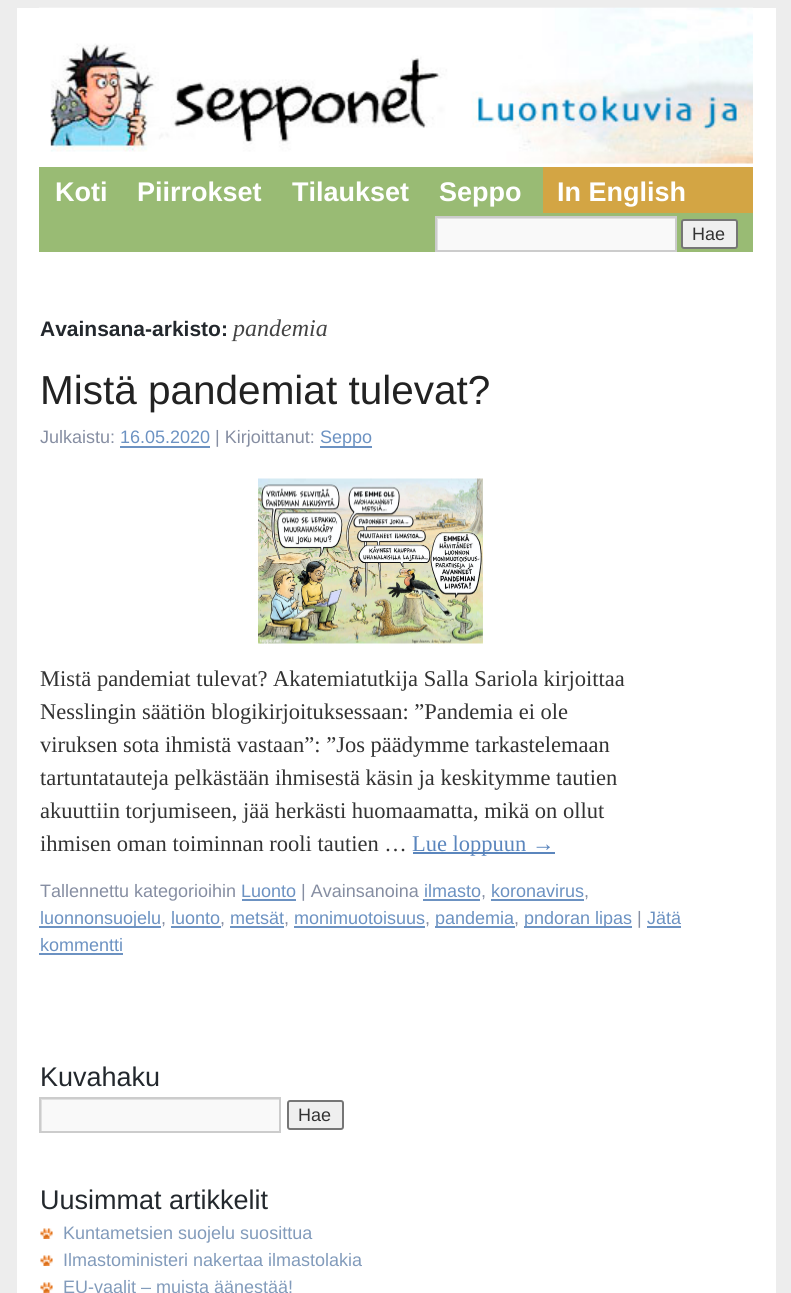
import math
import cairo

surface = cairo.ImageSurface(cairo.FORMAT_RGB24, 791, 1293)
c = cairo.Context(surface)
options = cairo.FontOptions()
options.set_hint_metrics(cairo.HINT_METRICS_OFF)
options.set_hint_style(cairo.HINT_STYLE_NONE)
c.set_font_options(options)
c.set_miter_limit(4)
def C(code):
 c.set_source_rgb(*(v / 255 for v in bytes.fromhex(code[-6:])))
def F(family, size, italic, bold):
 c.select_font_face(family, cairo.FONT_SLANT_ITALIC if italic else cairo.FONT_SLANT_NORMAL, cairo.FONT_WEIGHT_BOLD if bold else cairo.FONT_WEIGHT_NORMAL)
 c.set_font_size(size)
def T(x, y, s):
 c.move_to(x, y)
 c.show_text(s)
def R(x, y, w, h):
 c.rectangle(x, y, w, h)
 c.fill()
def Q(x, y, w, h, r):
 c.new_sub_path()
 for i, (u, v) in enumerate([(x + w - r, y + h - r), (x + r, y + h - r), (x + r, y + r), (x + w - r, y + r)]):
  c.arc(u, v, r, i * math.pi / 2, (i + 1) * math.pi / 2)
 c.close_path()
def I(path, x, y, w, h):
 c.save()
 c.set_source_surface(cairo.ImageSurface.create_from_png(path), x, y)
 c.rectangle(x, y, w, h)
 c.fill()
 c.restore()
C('ededed')
c.paint()
C('ffffff')
R(17,8,759,1285)
I('1.png',39,7,714,157)
C('99bb74')
R(39,167,714,85)
F('Liberation Sans',27,0,1)
C('ffffff')
T(55,201,'Koti')
T(137,201,'Piirrokset')
T(292,201,'Tilaukset')
T(439,201,'Seppo')
C('d3a544')
R(543,167,210,46)
C('ffffff')
T(557,201,'In English')
C('f9f9f9')
R(438,219,237,31)
c.save()
c.rectangle(437,218,238,33)
c.clip()
C('e0e0e0')
c.set_fill_rule(cairo.FILL_RULE_EVEN_ODD)
c.new_path()
c.move_to(288,69)
c.line_to(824,69)
c.line_to(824,399)
c.line_to(288,399)
c.close_path()
c.move_to(438,219)
c.line_to(676,219)
c.line_to(676,252)
c.line_to(438,252)
c.close_path()
c.fill()
c.restore()
c.rectangle(436,217,240,34)
C('cccccc')
c.stroke()
C('efefef')
Q(682,220,55,28,2)
c.fill_preserve()
C('767676')
c.stroke()
F('Liberation Sans',18,0,0)
C('333333')
T(692,240,'Hae')
F('Liberation Sans',21,0,1)
C('23282d')
T(40,336,'Avainsana-arkisto:')
F('Liberation Serif',24,1,0)
C('444444')
T(233,336,'pandemia')
F('Liberation Sans',40.5,0,0)
C('222222')
T(40,404,'Mistä pandemiat tulevat?')
F('Liberation Sans',18,0,0)
C('868ea2')
T(40,443,'Julkaistu:')
C('6c92c2')
T(120,443,'16.05.2020')
R(120,446,90,2)
C('868ea2')
T(215,443,'| Kirjoittanut:')
C('6c92c2')
R(320,446,52,2)
T(320,443,'Seppo')
I('2.png',258,478,225,166)
F('Liberation Serif',22.5,0,0)
C('333333')
T(40,686,'Mistä pandemiat tulevat? Akatemiatutkija Salla Sariola kirjoittaa')
T(40,719,'Nesslingin säätiön blogikirjoituksessaan: ”Pandemia ei ole')
T(40,752,'viruksen sota ihmistä vastaan”: ”Jos päädymme tarkastelemaan')
T(40,785,'tartuntatauteja pelkästään ihmisestä käsin ja keskitymme tautien')
T(40,818,'akuuttiin torjumiseen, jää herkästi huomaamatta, mikä on ollut')
T(40,851,'ihmisen oman toiminnan rooli tautien …')
C('5b86bd')
R(413,852,142,2)
T(412,851,'Lue loppuun →')
F('Liberation Sans',18,0,0)
C('868ea2')
T(40,897,'Tallennettu kategorioihin')
C('6c92c2')
T(241,897,'Luonto')
R(242,899,54,2)
C('868ea2')
T(301,897,'| Avainsanoina')
C('6c92c2')
T(424,897,'ilmasto')
C('868ea2')
T(481,897,',')
C('6c92c2')
R(423,899,57,2)
T(491,897,'koronavirus')
C('868ea2')
T(584,897,',')
C('6c92c2')
R(491,899,93,2)
R(39,926,122,2)
T(40,924,'luonnonsuojelu')
C('868ea2')
T(161,924,',')
C('6c92c2')
T(171,924,'luonto')
C('868ea2')
T(220,924,',')
C('6c92c2')
R(171,926,50,2)
T(230,924,'metsät')
C('868ea2')
T(284,924,',')
C('6c92c2')
R(230,926,54,2)
T(294,924,'monimuotoisuus')
C('868ea2')
T(425,924,',')
C('6c92c2')
R(294,926,131,2)
R(435,926,80,2)
T(435,924,'pandemia')
C('868ea2')
T(514,924,',')
C('6c92c2')
R(524,926,108,2)
T(524,924,'pndoran lipas')
C('868ea2')
T(637,924,'|')
C('6c92c2')
T(647,924,'Jätä')
R(647,926,34,2)
T(40,951,'kommentti')
R(39,953,84,2)
F('Liberation Sans',27,0,0)
C('23282d')
T(40,1086,'Kuvahaku')
C('f9f9f9')
R(42,1100,237,31)
c.save()
c.rectangle(41,1098,238,33)
c.clip()
C('e0e0e0')
c.set_fill_rule(cairo.FILL_RULE_EVEN_ODD)
c.new_path()
c.move_to(-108,950)
c.line_to(428,950)
c.line_to(428,1280)
c.line_to(-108,1280)
c.close_path()
c.move_to(42,1100)
c.line_to(280,1100)
c.line_to(280,1132)
c.line_to(42,1132)
c.close_path()
c.fill()
c.restore()
c.rectangle(40,1098,240,34)
C('cccccc')
c.stroke()
C('efefef')
Q(288,1101,55,28,2)
c.fill_preserve()
C('767676')
c.stroke()
F('Liberation Sans',18,0,0)
C('333333')
T(298,1121,'Hae')
F('Liberation Sans',27,0,0)
C('23282d')
T(40,1209,'Uusimmat artikkelit')
I('3.png',40,1228,13,11)
F('Liberation Sans',18,0,0)
C('829bbb')
T(63,1239,'Kuntametsien suojelu suosittua')
I('3.png',40,1255,13,11)
T(63,1266,'Ilmastoministeri nakertaa ilmastolakia')
I('3.png',40,1282,13,11)
T(63,1293,'EU-vaalit – muista äänestää!')
surface.write_to_png('o.png')
